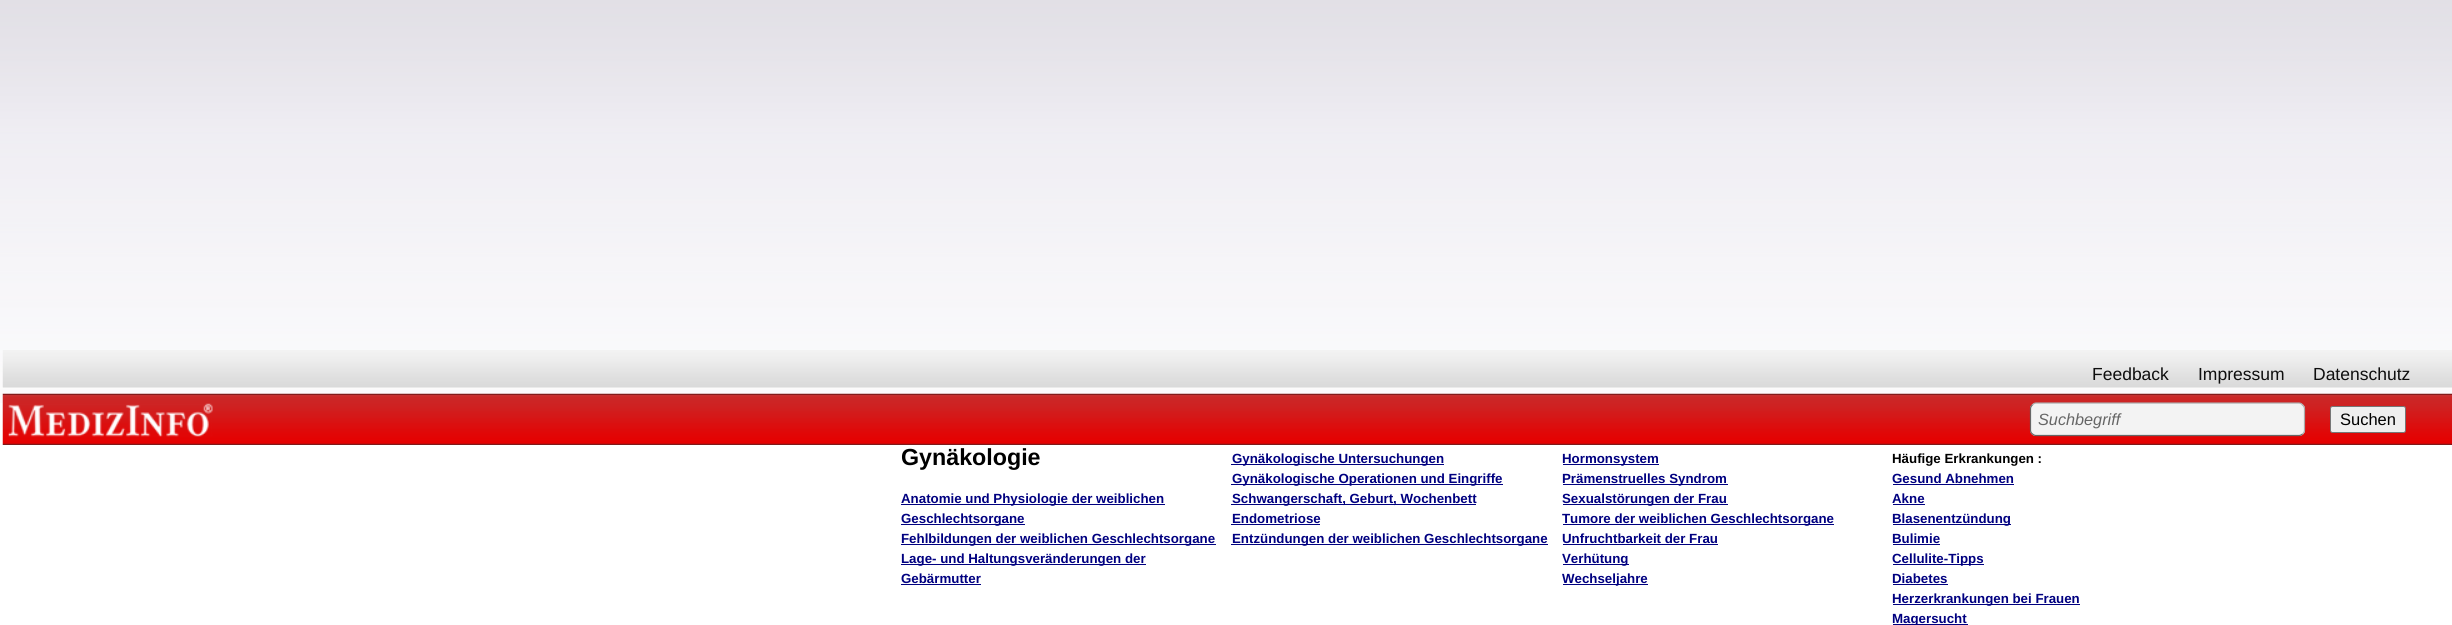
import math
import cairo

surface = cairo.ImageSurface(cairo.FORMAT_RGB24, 2452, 625)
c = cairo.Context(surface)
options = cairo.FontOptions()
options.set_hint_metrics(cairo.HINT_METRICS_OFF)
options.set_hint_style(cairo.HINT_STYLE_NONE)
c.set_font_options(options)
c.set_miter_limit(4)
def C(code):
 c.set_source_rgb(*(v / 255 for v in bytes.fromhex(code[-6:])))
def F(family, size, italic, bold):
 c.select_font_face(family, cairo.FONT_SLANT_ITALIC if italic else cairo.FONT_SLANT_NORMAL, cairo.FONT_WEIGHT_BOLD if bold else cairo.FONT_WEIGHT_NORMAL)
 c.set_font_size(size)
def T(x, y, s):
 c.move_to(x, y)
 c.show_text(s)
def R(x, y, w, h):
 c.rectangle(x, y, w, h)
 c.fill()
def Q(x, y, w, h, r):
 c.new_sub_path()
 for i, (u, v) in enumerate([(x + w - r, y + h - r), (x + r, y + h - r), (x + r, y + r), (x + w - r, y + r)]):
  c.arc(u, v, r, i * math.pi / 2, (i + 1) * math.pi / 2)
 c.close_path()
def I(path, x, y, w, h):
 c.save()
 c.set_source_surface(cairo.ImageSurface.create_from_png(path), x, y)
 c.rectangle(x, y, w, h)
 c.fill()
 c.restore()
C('ffffff')
c.paint()
I('1.png',0,0,2452,403)
I('2.png',2,350,2450,38)
F('Liberation Sans',17.5,0,0)
C('0e0e0e')
T(2092,380,'Feedback')
T(2198,380,'Impressum')
T(2313,380,'Datenschutz')
I('3.png',2,393,2450,52)
I('4.png',8,403,205,34)
C('f3f3f3')
Q(2030,403,275,33,6)
c.fill()
c.new_path()
c.move_to(2032.5,405)
c.curve_to(2033.5,403.5,2035,403,2036,403)
c.line_to(2299,403)
c.curve_to(2300,403,2301.5,403.5,2302.5,405)
c.curve_to(2304,406,2304.5,407.5,2304.5,409)
c.line_to(2304.5,430)
c.curve_to(2304.5,431.5,2304,433,2302.5,434)
C('aaaaaa')
c.set_line_width(1.2)
c.stroke()
c.new_path()
c.move_to(2302.5,434)
c.curve_to(2301.5,435,2300,435.5,2299,435.5)
c.line_to(2036,435.5)
c.curve_to(2035,435.5,2033.5,435,2032.5,434)
c.curve_to(2031,433,2030.5,431.5,2030.5,430)
c.line_to(2030.5,409)
c.curve_to(2030.5,407.5,2031,406,2032.5,405)
C('666666')
c.stroke()
F('Liberation Sans',16.25,1,0)
T(2038,425,'Suchbegriff')
C('efefef')
Q(2330.5,406.5,75,26,2)
c.fill_preserve()
C('767676')
c.set_line_width(1)
c.stroke()
F('Liberation Sans',16.5,0,0)
C('000000')
T(2340,425,'Suchen')
F('Liberation Sans',23.25,0,1)
T(901,465,'Gynäkologie')
C('000080')
R(901,504,264,1)
F('Liberation Sans',13.3,0,1)
T(901,503,'Anatomie und Physiologie der weiblichen')
R(901,524,124,1)
T(901,523,'Geschlechtsorgane')
R(901,544,315,1)
T(901,543,'Fehlbildungen der weiblichen Geschlechtsorgane')
R(901,564,245,1)
T(901,563,'Lage- und Haltungsveränderungen der')
T(901,583,'Gebärmutter')
R(901,584,80,1)
R(1231,464,213,1)
T(1232,463,'Gynäkologische Untersuchungen')
R(1231,484,272,1)
T(1232,483,'Gynäkologische Operationen und Eingriffe')
R(1231,504,245,1)
T(1232,503,'Schwangerschaft, Geburt, Wochenbett')
T(1232,523,'Endometriose')
R(1231,524,89,1)
R(1231,544,317,1)
T(1232,543,'Entzündungen der weiblichen Geschlechtsorgane')
R(1563,464,96,1)
T(1562,463,'Hormonsystem')
R(1563,484,165,1)
T(1562,483,'Prämenstruelles Syndrom')
R(1563,504,165,1)
T(1562,503,'Sexualstörungen der Frau')
R(1563,524,271,1)
T(1562,523,'Tumore der weiblichen Geschlechtsorgane')
T(1562,543,'Unfruchtbarkeit der Frau')
R(1563,544,155,1)
R(1563,564,66,1)
T(1562,563,'Verhütung')
R(1563,584,85,1)
T(1562,583,'Wechseljahre')
C('000000')
T(1892,463,'Häufige Erkrankungen :')
C('000080')
T(1892,483,'Gesund Abnehmen')
R(1893,484,121,1)
T(1892,503,'Akne')
R(1893,504,32,1)
R(1893,524,118,1)
T(1892,523,'Blasenentzündung')
T(1892,543,'Bulimie')
R(1893,544,47,1)
R(1893,564,91,1)
T(1892,563,'Cellulite-Tipps')
T(1892,583,'Diabetes')
R(1893,584,55,1)
R(1893,604,187,1)
T(1892,603,'Herzerkrankungen bei Frauen')
R(1893,624,75,1)
T(1892,623,'Magersucht')
surface.write_to_png('o.png')
